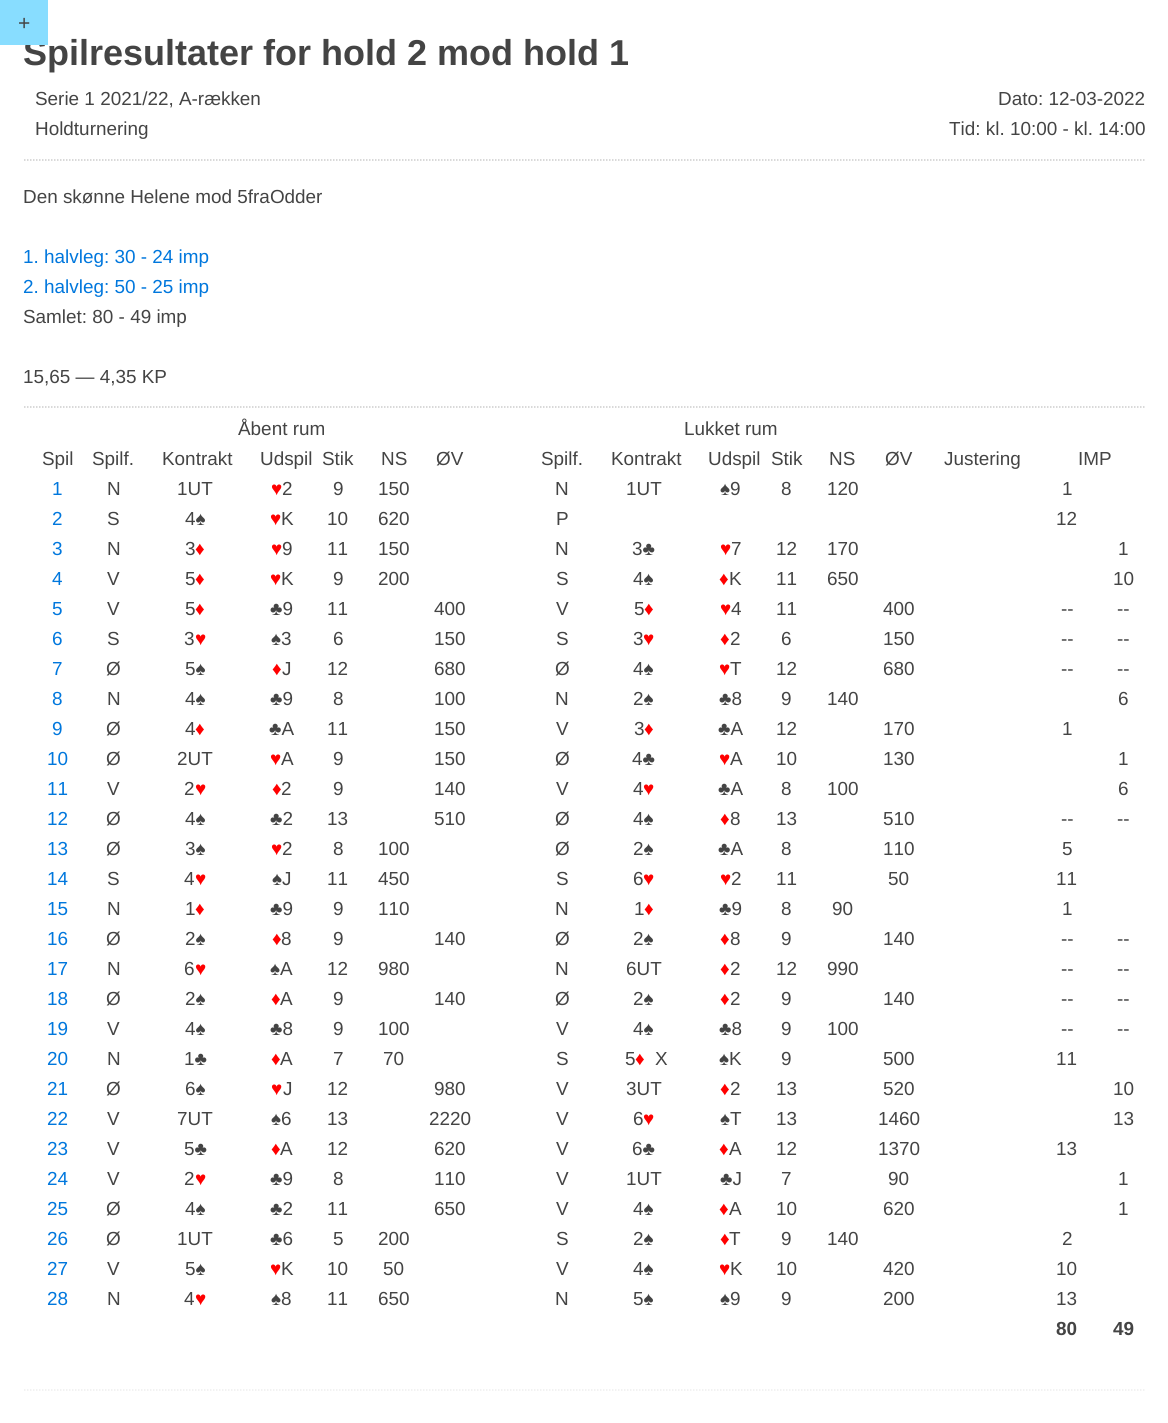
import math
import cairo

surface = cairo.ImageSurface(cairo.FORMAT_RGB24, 1168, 1423)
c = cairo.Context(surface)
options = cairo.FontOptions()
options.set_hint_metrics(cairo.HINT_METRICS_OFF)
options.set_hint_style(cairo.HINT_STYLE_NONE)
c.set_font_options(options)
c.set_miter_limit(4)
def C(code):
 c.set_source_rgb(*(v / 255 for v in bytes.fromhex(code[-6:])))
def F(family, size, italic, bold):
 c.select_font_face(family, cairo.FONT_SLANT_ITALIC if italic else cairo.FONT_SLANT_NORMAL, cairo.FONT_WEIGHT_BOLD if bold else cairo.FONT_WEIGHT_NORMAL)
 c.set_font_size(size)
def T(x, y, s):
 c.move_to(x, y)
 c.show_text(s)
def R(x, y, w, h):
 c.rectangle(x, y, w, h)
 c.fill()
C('ffffff')
c.paint()
F('Liberation Sans',36,0,1)
C('444444')
T(23,65,'Spilresultater for hold 2 mod hold 1')
C('88ddff')
R(0,0,48,45)
F('Liberation Sans',21,0,0)
C('444444')
T(18,30,'+')
c.new_path()
c.move_to(24,160)
c.line_to(1144.5,160)
C('cccccc')
c.set_line_width(1.5)
c.set_dash([1.5,1.5])
c.stroke()
F('Liberation Sans',18.9,0,0)
C('444444')
T(35,105,'Serie 1 2021/22, A-rækken')
T(35,135,'Holdturnering')
T(998,105,'Dato: 12-03-2022')
T(949,135,'Tid: kl. 10:00 - kl. 14:00')
c.new_path()
c.move_to(24,407)
c.line_to(1144.5,407)
C('cccccc')
c.stroke()
C('444444')
T(23,203,'Den skønne Helene mod 5fraOdder')
C('0077dd')
T(23,263,'1. halvleg: 30 - 24 imp')
T(23,293,'2. halvleg: 50 - 25 imp')
C('444444')
T(23,323,'Samlet: 80 - 49 imp')
T(23,383,'15,65 — 4,35 KP')
T(238,435,'Åbent rum')
T(684,435,'Lukket rum')
T(42,465,'Spil')
T(92,465,'Spilf.')
T(162,465,'Kontrakt')
T(260,465,'Udspil')
T(322,465,'Stik')
T(381,465,'NS')
T(436,465,'ØV')
T(541,465,'Spilf.')
T(611,465,'Kontrakt')
T(708,465,'Udspil')
T(771,465,'Stik')
T(829,465,'NS')
T(885,465,'ØV')
T(944,465,'Justering')
T(1078,465,'IMP')
C('0077dd')
T(52,495,'1')
C('444444')
T(107,495,'N')
T(177,495,'1UT')
C('ff0000')
T(271,495,'♥')
C('444444')
T(282,495,'2')
T(333,495,'9')
T(378,495,'150')
T(555,495,'N')
T(626,495,'1UT')
T(720,495,'♠9')
T(781,495,'8')
T(827,495,'120')
T(1062,495,'1')
C('0077dd')
T(52,525,'2')
C('444444')
T(107,525,'S')
T(185,525,'4♠')
C('ff0000')
T(270,525,'♥')
C('444444')
T(281,525,'K')
T(327,525,'10')
T(378,525,'620')
T(556,525,'P')
T(1056,525,'12')
C('0077dd')
T(52,555,'3')
C('444444')
T(107,555,'N')
T(185,555,'3')
C('ff0000')
T(195,555,'♦')
T(271,555,'♥')
C('444444')
T(282,555,'9')
T(327,555,'11')
T(378,555,'150')
T(555,555,'N')
T(632,555,'3♣')
C('ff0000')
T(720,555,'♥')
C('444444')
T(731,555,'7')
T(776,555,'12')
T(827,555,'170')
T(1118,555,'1')
C('0077dd')
T(52,585,'4')
C('444444')
T(107,585,'V')
T(185,585,'5')
C('ff0000')
T(195,585,'♦')
T(270,585,'♥')
C('444444')
T(281,585,'K')
T(333,585,'9')
T(378,585,'200')
T(556,585,'S')
T(633,585,'4♠')
C('ff0000')
T(719,585,'♦')
C('444444')
T(729,585,'K')
T(776,585,'11')
T(827,585,'650')
T(1113,585,'10')
C('0077dd')
T(52,615,'5')
C('444444')
T(107,615,'V')
T(185,615,'5')
C('ff0000')
T(195,615,'♦')
C('444444')
T(270,615,'♣9')
T(327,615,'11')
T(434,615,'400')
T(556,615,'V')
T(634,615,'5')
C('ff0000')
T(644,615,'♦')
T(720,615,'♥')
C('444444')
T(731,615,'4')
T(776,615,'11')
T(883,615,'400')
T(1061,615,'--')
T(1117,615,'--')
C('0077dd')
T(52,645,'6')
C('444444')
T(107,645,'S')
T(184,645,'3')
C('ff0000')
T(195,645,'♥')
C('444444')
T(271,645,'♠3')
T(333,645,'6')
T(434,645,'150')
T(556,645,'S')
T(633,645,'3')
C('ff0000')
T(643,645,'♥')
T(720,645,'♦')
C('444444')
T(730,645,'2')
T(781,645,'6')
T(883,645,'150')
T(1061,645,'--')
T(1117,645,'--')
C('0077dd')
T(52,675,'7')
C('444444')
T(106,675,'Ø')
T(185,675,'5♠')
C('ff0000')
T(272,675,'♦')
C('444444')
T(282,675,'J')
T(327,675,'12')
T(434,675,'680')
T(555,675,'Ø')
T(633,675,'4♠')
C('ff0000')
T(719,675,'♥')
C('444444')
T(730,675,'T')
T(776,675,'12')
T(883,675,'680')
T(1061,675,'--')
T(1117,675,'--')
C('0077dd')
T(52,705,'8')
C('444444')
T(107,705,'N')
T(185,705,'4♠')
T(270,705,'♣9')
T(333,705,'8')
T(434,705,'100')
T(555,705,'N')
T(633,705,'2♠')
T(719,705,'♣8')
T(781,705,'9')
T(827,705,'140')
T(1118,705,'6')
C('0077dd')
T(52,735,'9')
C('444444')
T(106,735,'Ø')
T(185,735,'4')
C('ff0000')
T(195,735,'♦')
C('444444')
T(269,735,'♣A')
T(327,735,'11')
T(434,735,'150')
T(556,735,'V')
T(634,735,'3')
C('ff0000')
T(644,735,'♦')
C('444444')
T(718,735,'♣A')
T(776,735,'12')
T(883,735,'170')
T(1062,735,'1')
C('0077dd')
T(47,765,'10')
C('444444')
T(106,765,'Ø')
T(177,765,'2UT')
C('ff0000')
T(270,765,'♥')
C('444444')
T(281,765,'A')
T(333,765,'9')
T(434,765,'150')
T(555,765,'Ø')
T(632,765,'4♣')
C('ff0000')
T(719,765,'♥')
C('444444')
T(730,765,'A')
T(776,765,'10')
T(883,765,'130')
T(1118,765,'1')
C('0077dd')
T(47,795,'11')
C('444444')
T(107,795,'V')
T(184,795,'2')
C('ff0000')
T(195,795,'♥')
T(272,795,'♦')
C('444444')
T(281,795,'2')
T(333,795,'9')
T(434,795,'140')
T(556,795,'V')
T(633,795,'4')
C('ff0000')
T(643,795,'♥')
C('444444')
T(718,795,'♣A')
T(781,795,'8')
T(827,795,'100')
T(1118,795,'6')
C('0077dd')
T(47,825,'12')
C('444444')
T(106,825,'Ø')
T(185,825,'4♠')
T(270,825,'♣2')
T(327,825,'13')
T(434,825,'510')
T(555,825,'Ø')
T(633,825,'4♠')
C('ff0000')
T(720,825,'♦')
C('444444')
T(730,825,'8')
T(776,825,'13')
T(883,825,'510')
T(1061,825,'--')
T(1117,825,'--')
C('0077dd')
T(47,855,'13')
C('444444')
T(106,855,'Ø')
T(185,855,'3♠')
C('ff0000')
T(271,855,'♥')
C('444444')
T(282,855,'2')
T(333,855,'8')
T(378,855,'100')
T(555,855,'Ø')
T(633,855,'2♠')
T(718,855,'♣A')
T(781,855,'8')
T(883,855,'110')
T(1062,855,'5')
C('0077dd')
T(47,885,'14')
C('444444')
T(107,885,'S')
T(184,885,'4')
C('ff0000')
T(195,885,'♥')
C('444444')
T(272,885,'♠J')
T(327,885,'11')
T(378,885,'450')
T(556,885,'S')
T(633,885,'6')
C('ff0000')
T(643,885,'♥')
T(720,885,'♥')
C('444444')
T(731,885,'2')
T(776,885,'11')
T(888,885,'50')
T(1056,885,'11')
C('0077dd')
T(47,915,'15')
C('444444')
T(107,915,'N')
T(185,915,'1')
C('ff0000')
T(195,915,'♦')
C('444444')
T(270,915,'♣9')
T(333,915,'9')
T(378,915,'110')
T(555,915,'N')
T(634,915,'1')
C('ff0000')
T(644,915,'♦')
C('444444')
T(719,915,'♣9')
T(781,915,'8')
T(832,915,'90')
T(1062,915,'1')
C('0077dd')
T(47,945,'16')
C('444444')
T(106,945,'Ø')
T(185,945,'2♠')
C('ff0000')
T(272,945,'♦')
C('444444')
T(281,945,'8')
T(333,945,'9')
T(434,945,'140')
T(555,945,'Ø')
T(633,945,'2♠')
C('ff0000')
T(720,945,'♦')
C('444444')
T(730,945,'8')
T(781,945,'9')
T(883,945,'140')
T(1061,945,'--')
T(1117,945,'--')
C('0077dd')
T(47,975,'17')
C('444444')
T(107,975,'N')
T(184,975,'6')
C('ff0000')
T(195,975,'♥')
C('444444')
T(270,975,'♠A')
T(327,975,'12')
T(378,975,'980')
T(555,975,'N')
T(626,975,'6UT')
C('ff0000')
T(720,975,'♦')
C('444444')
T(730,975,'2')
T(776,975,'12')
T(827,975,'990')
T(1061,975,'--')
T(1117,975,'--')
C('0077dd')
T(47,1005,'18')
C('444444')
T(106,1005,'Ø')
T(185,1005,'2♠')
C('ff0000')
T(271,1005,'♦')
C('444444')
T(280,1005,'A')
T(333,1005,'9')
T(434,1005,'140')
T(555,1005,'Ø')
T(633,1005,'2♠')
C('ff0000')
T(720,1005,'♦')
C('444444')
T(730,1005,'2')
T(781,1005,'9')
T(883,1005,'140')
T(1061,1005,'--')
T(1117,1005,'--')
C('0077dd')
T(47,1035,'19')
C('444444')
T(107,1035,'V')
T(185,1035,'4♠')
T(270,1035,'♣8')
T(333,1035,'9')
T(378,1035,'100')
T(556,1035,'V')
T(633,1035,'4♠')
T(719,1035,'♣8')
T(781,1035,'9')
T(827,1035,'100')
T(1061,1035,'--')
T(1117,1035,'--')
C('0077dd')
T(47,1065,'20')
C('444444')
T(107,1065,'N')
T(184,1065,'1♣')
C('ff0000')
T(271,1065,'♦')
C('444444')
T(280,1065,'A')
T(333,1065,'7')
T(383,1065,'70')
T(556,1065,'S')
T(625,1065,'5')
C('ff0000')
T(635,1065,'♦')
C('444444')
T(655,1065,'X')
T(719,1065,'♠K')
T(781,1065,'9')
T(883,1065,'500')
T(1056,1065,'11')
C('0077dd')
T(47,1095,'21')
C('444444')
T(106,1095,'Ø')
T(185,1095,'6♠')
C('ff0000')
T(271,1095,'♥')
C('444444')
T(283,1095,'J')
T(327,1095,'12')
T(434,1095,'980')
T(556,1095,'V')
T(626,1095,'3UT')
C('ff0000')
T(720,1095,'♦')
C('444444')
T(730,1095,'2')
T(776,1095,'13')
T(883,1095,'520')
T(1113,1095,'10')
C('0077dd')
T(47,1125,'22')
C('444444')
T(107,1125,'V')
T(177,1125,'7UT')
T(271,1125,'♠6')
T(327,1125,'13')
T(429,1125,'2220')
T(556,1125,'V')
T(633,1125,'6')
C('ff0000')
T(643,1125,'♥')
C('444444')
T(720,1125,'♠T')
T(776,1125,'13')
T(878,1125,'1460')
T(1113,1125,'13')
C('0077dd')
T(47,1155,'23')
C('444444')
T(107,1155,'V')
T(184,1155,'5♣')
C('ff0000')
T(271,1155,'♦')
C('444444')
T(280,1155,'A')
T(327,1155,'12')
T(434,1155,'620')
T(556,1155,'V')
T(632,1155,'6♣')
C('ff0000')
T(719,1155,'♦')
C('444444')
T(729,1155,'A')
T(776,1155,'12')
T(878,1155,'1370')
T(1056,1155,'13')
C('0077dd')
T(47,1185,'24')
C('444444')
T(107,1185,'V')
T(184,1185,'2')
C('ff0000')
T(195,1185,'♥')
C('444444')
T(270,1185,'♣9')
T(333,1185,'8')
T(434,1185,'110')
T(556,1185,'V')
T(626,1185,'1UT')
T(720,1185,'♣J')
T(781,1185,'7')
T(888,1185,'90')
T(1118,1185,'1')
C('0077dd')
T(47,1215,'25')
C('444444')
T(106,1215,'Ø')
T(185,1215,'4♠')
T(270,1215,'♣2')
T(327,1215,'11')
T(434,1215,'650')
T(556,1215,'V')
T(633,1215,'4♠')
C('ff0000')
T(719,1215,'♦')
C('444444')
T(729,1215,'A')
T(776,1215,'10')
T(883,1215,'620')
T(1118,1215,'1')
C('0077dd')
T(47,1245,'26')
C('444444')
T(106,1245,'Ø')
T(177,1245,'1UT')
T(270,1245,'♣6')
T(333,1245,'5')
T(378,1245,'200')
T(556,1245,'S')
T(633,1245,'2♠')
C('ff0000')
T(720,1245,'♦')
C('444444')
T(729,1245,'T')
T(781,1245,'9')
T(827,1245,'140')
T(1062,1245,'2')
C('0077dd')
T(47,1275,'27')
C('444444')
T(107,1275,'V')
T(185,1275,'5♠')
C('ff0000')
T(270,1275,'♥')
C('444444')
T(281,1275,'K')
T(327,1275,'10')
T(383,1275,'50')
T(556,1275,'V')
T(633,1275,'4♠')
C('ff0000')
T(719,1275,'♥')
C('444444')
T(730,1275,'K')
T(776,1275,'10')
T(883,1275,'420')
T(1056,1275,'10')
C('0077dd')
T(47,1305,'28')
C('444444')
T(107,1305,'N')
T(184,1305,'4')
C('ff0000')
T(195,1305,'♥')
C('444444')
T(271,1305,'♠8')
T(327,1305,'11')
T(378,1305,'650')
T(555,1305,'N')
T(633,1305,'5♠')
T(720,1305,'♠9')
T(781,1305,'9')
T(883,1305,'200')
T(1056,1305,'13')
F('Liberation Sans',18.9,0,1)
T(1056,1335,'80')
T(1113,1335,'49')
c.new_path()
c.move_to(24,1390)
c.line_to(1144.5,1390)
C('eeeeee')
c.stroke()
surface.write_to_png('o.png')
